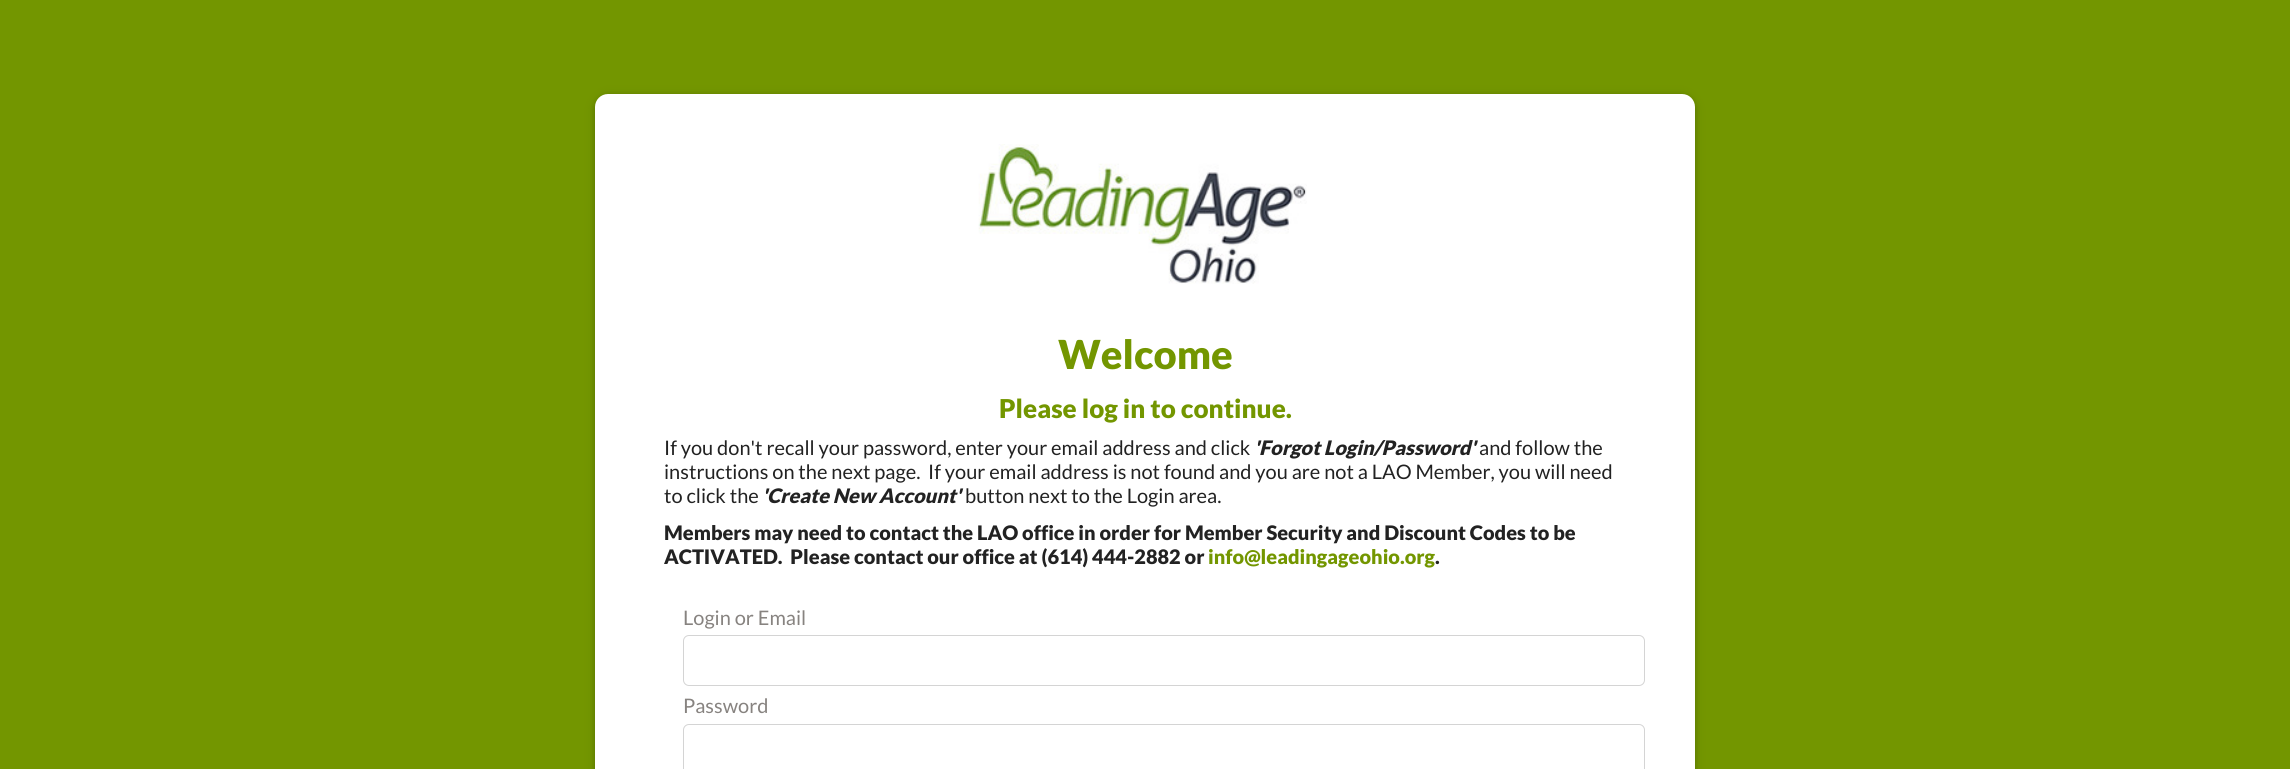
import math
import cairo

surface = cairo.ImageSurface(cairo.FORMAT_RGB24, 2290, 769)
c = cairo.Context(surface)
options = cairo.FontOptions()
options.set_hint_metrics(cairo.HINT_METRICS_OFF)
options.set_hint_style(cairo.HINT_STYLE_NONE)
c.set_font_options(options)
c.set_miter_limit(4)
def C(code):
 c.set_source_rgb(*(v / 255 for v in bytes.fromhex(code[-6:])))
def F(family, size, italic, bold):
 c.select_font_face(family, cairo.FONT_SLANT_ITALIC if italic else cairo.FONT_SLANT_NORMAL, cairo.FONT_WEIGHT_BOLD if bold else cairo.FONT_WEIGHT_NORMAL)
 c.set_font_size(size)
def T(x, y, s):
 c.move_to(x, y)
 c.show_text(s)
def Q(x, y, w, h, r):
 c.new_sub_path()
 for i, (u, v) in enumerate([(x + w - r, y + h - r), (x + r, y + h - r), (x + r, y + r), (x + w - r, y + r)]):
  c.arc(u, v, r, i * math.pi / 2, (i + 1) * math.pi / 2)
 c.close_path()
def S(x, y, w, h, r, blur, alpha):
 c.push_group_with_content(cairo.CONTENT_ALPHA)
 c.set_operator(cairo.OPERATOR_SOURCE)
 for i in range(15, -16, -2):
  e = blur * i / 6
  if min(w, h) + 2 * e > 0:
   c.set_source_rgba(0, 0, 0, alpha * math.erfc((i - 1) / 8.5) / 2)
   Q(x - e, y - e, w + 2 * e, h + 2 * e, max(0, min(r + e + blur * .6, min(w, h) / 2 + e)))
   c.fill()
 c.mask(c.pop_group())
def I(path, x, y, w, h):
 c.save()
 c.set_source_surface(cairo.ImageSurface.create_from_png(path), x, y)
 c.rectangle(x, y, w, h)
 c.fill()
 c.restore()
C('739600')
c.paint()
C('000000')
S(595,96,1100,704,13,6,.12)
S(595,96,1100,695,13,3,.16)
C('ffffff')
Q(595,94,1100,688,13)
c.fill()
I('1.png',978,144,329,140)
F('Lato Black',40,0,0)
C('739600')
T(1058,369,'Welcome')
F('Lato Black',26,0,0)
T(999,418,'Please log in to continue.')
F('Lato',20,0,0)
C('222222')
T(664,455,'If you don\'t recall your password, enter your email address and click')
F('Lato Black',20,1,0)
T(1254,455,'\'Forgot Login/Password\'')
F('Lato',20,0,0)
T(1479,455,'and follow the')
T(664,479,'instructions on the next page.  If your email address is not found and you are not a LAO Member, you will need')
T(664,503,'to click the')
F('Lato Black',20,1,0)
T(762,503,'\'Create New Account\'')
F('Lato',20,0,0)
T(965,503,'button next to the Login area.')
F('Lato Black',20,0,0)
T(664,540,'Members may need to contact the LAO office in order for Member Security and Discount Codes to be')
T(664,564,'ACTIVATED.  Please contact our office at (614) 444-2882 or')
C('739600')
T(1208,564,'info@leadingageohio.org')
C('222222')
T(1435,564,'.')
F('Lato',20,0,0)
C('878380')
T(683,625,'Login or Email')
Q(683.5,635.5,961,50,5.5)
C('d4d4d4')
c.set_line_width(1)
c.stroke()
C('878380')
T(683,713,'Password')
Q(683.5,724.5,961,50,5.5)
C('d4d4d4')
c.stroke()
surface.write_to_png('o.png')
